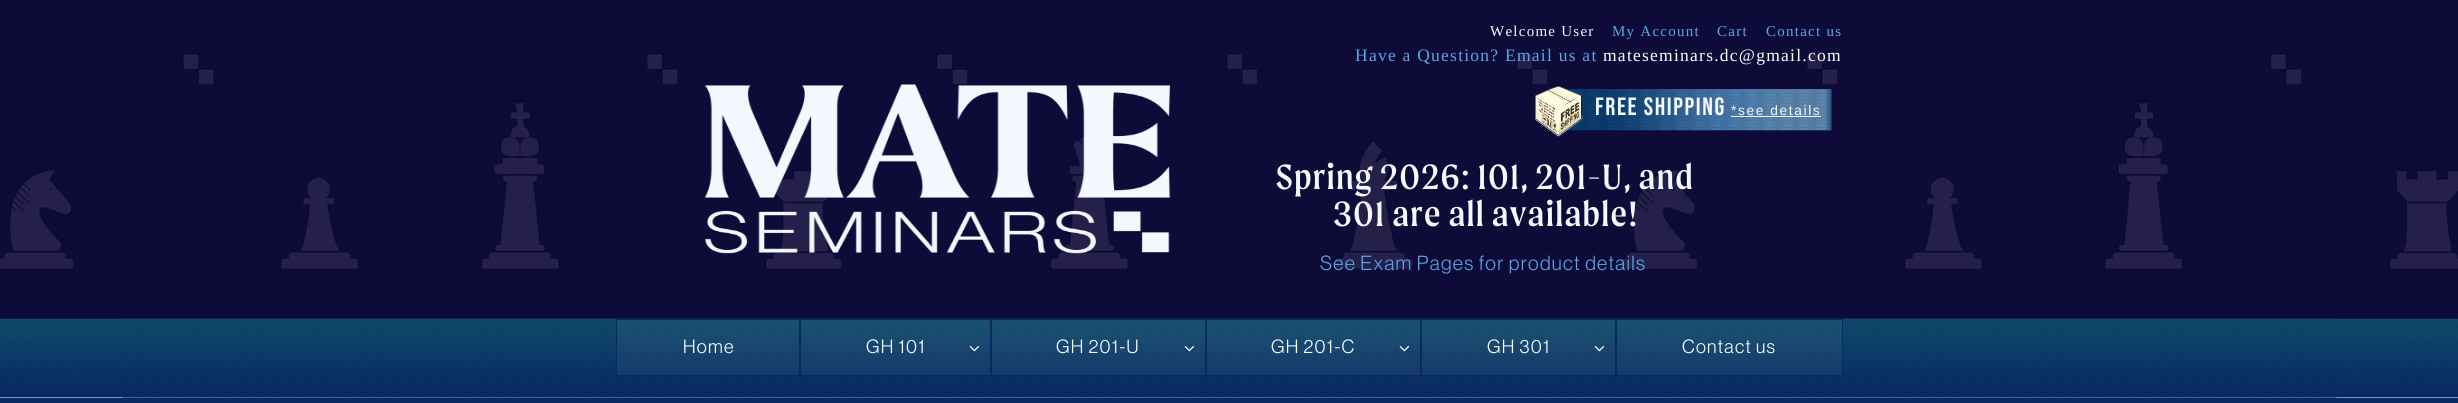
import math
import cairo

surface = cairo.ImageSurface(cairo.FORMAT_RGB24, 2458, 403)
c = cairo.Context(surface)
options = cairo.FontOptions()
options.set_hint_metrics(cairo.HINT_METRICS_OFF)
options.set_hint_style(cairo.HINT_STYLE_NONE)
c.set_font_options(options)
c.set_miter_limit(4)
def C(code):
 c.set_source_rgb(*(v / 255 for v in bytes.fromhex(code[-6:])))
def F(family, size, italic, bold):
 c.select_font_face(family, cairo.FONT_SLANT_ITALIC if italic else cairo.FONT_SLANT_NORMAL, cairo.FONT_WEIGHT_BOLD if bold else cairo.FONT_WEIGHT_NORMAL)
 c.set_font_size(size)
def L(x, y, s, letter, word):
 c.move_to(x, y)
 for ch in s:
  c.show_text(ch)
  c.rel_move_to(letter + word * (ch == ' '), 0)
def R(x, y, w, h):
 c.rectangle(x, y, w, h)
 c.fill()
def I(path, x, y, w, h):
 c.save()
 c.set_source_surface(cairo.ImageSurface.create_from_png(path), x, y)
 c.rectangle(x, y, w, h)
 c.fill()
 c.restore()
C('092963')
c.paint()
C('0e0b38')
R(0,0,2458,319)
I('1.png',0,53,2458,216)
I('2.png',704,84,467,170)
F('Liberation Serif',15,0,0)
C('f5f8fe')
L(1490,36,'Welcome User',1.25,0)
C('5aa5e8')
L(1612,36,'My Account',1.25,0)
L(1717,36,'Cart',1.25,0)
L(1766,36,'Contact us',1.25,0)
F('Liberation Serif',17.5,0,0)
L(1355,61,'Have a Question? Email us at',1.25,0)
C('ffffff')
L(1603,61,'mateseminars.dc@gmail.com',1.25,0)
I('3.png',1534,86,299,51)
F('Bebas Neue',25,0,0)
C('f5f8fe')
L(1595,115,'FREE SHIPPING',1.6,0)
F('Liberation Sans',13.75,0,0)
L(1731,115,'*see details',1.6,0)
R(1731,116,90,1)
F('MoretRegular',37.5,0,0)
L(1276,189,'Spring 2026: 101, 201-U, and',1.25,0)
L(1333,226,'301 are all available!',1.25,0)
F('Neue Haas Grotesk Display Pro',20,0,0)
C('5aa5e8')
L(1320,270,'See Exam Pages for product details',1.25,0)
C('ffffff')
R(0,397,2458,1)
I('4.png',0,318,2458,80)
I('5.png',122,318,2215,80)
c.set_source_rgba(1,1,1,0.05)
c.rectangle(616.5,319.5,183,56)
c.fill_preserve()
C('092963')
c.set_line_width(1)
c.stroke()
F('Neue Haas Grotesk Display Pro',18.75,0,0)
C('ffffff')
L(683,353,'Home',1.25,0)
c.set_source_rgba(1,1,1,0.05)
c.rectangle(800.5,319.5,190,56)
c.fill_preserve()
C('092963')
c.stroke()
C('ffffff')
L(866,353,'GH 101',1.25,0)
I('6.png',969,346,10,6)
c.set_source_rgba(1,1,1,0.05)
c.rectangle(991.5,319.5,214,56)
c.fill_preserve()
C('092963')
c.stroke()
C('ffffff')
L(1056,353,'GH 201-U',1.25,0)
I('7.png',1184,346,10,6)
c.set_source_rgba(1,1,1,0.05)
c.rectangle(1206.5,319.5,214,56)
c.fill_preserve()
C('092963')
c.stroke()
C('ffffff')
L(1271,353,'GH 201-C',1.25,0)
I('8.png',1399,346,10,6)
c.set_source_rgba(1,1,1,0.05)
c.rectangle(1421.5,319.5,194,56)
c.fill_preserve()
C('092963')
c.stroke()
C('ffffff')
L(1487,353,'GH 301',1.25,0)
I('8.png',1594,346,10,6)
c.set_source_rgba(1,1,1,0.05)
c.rectangle(1616.5,319.5,226,56)
c.fill_preserve()
C('092963')
c.stroke()
C('ffffff')
L(1682,353,'Contact us',1.25,0)
surface.write_to_png('o.png')
